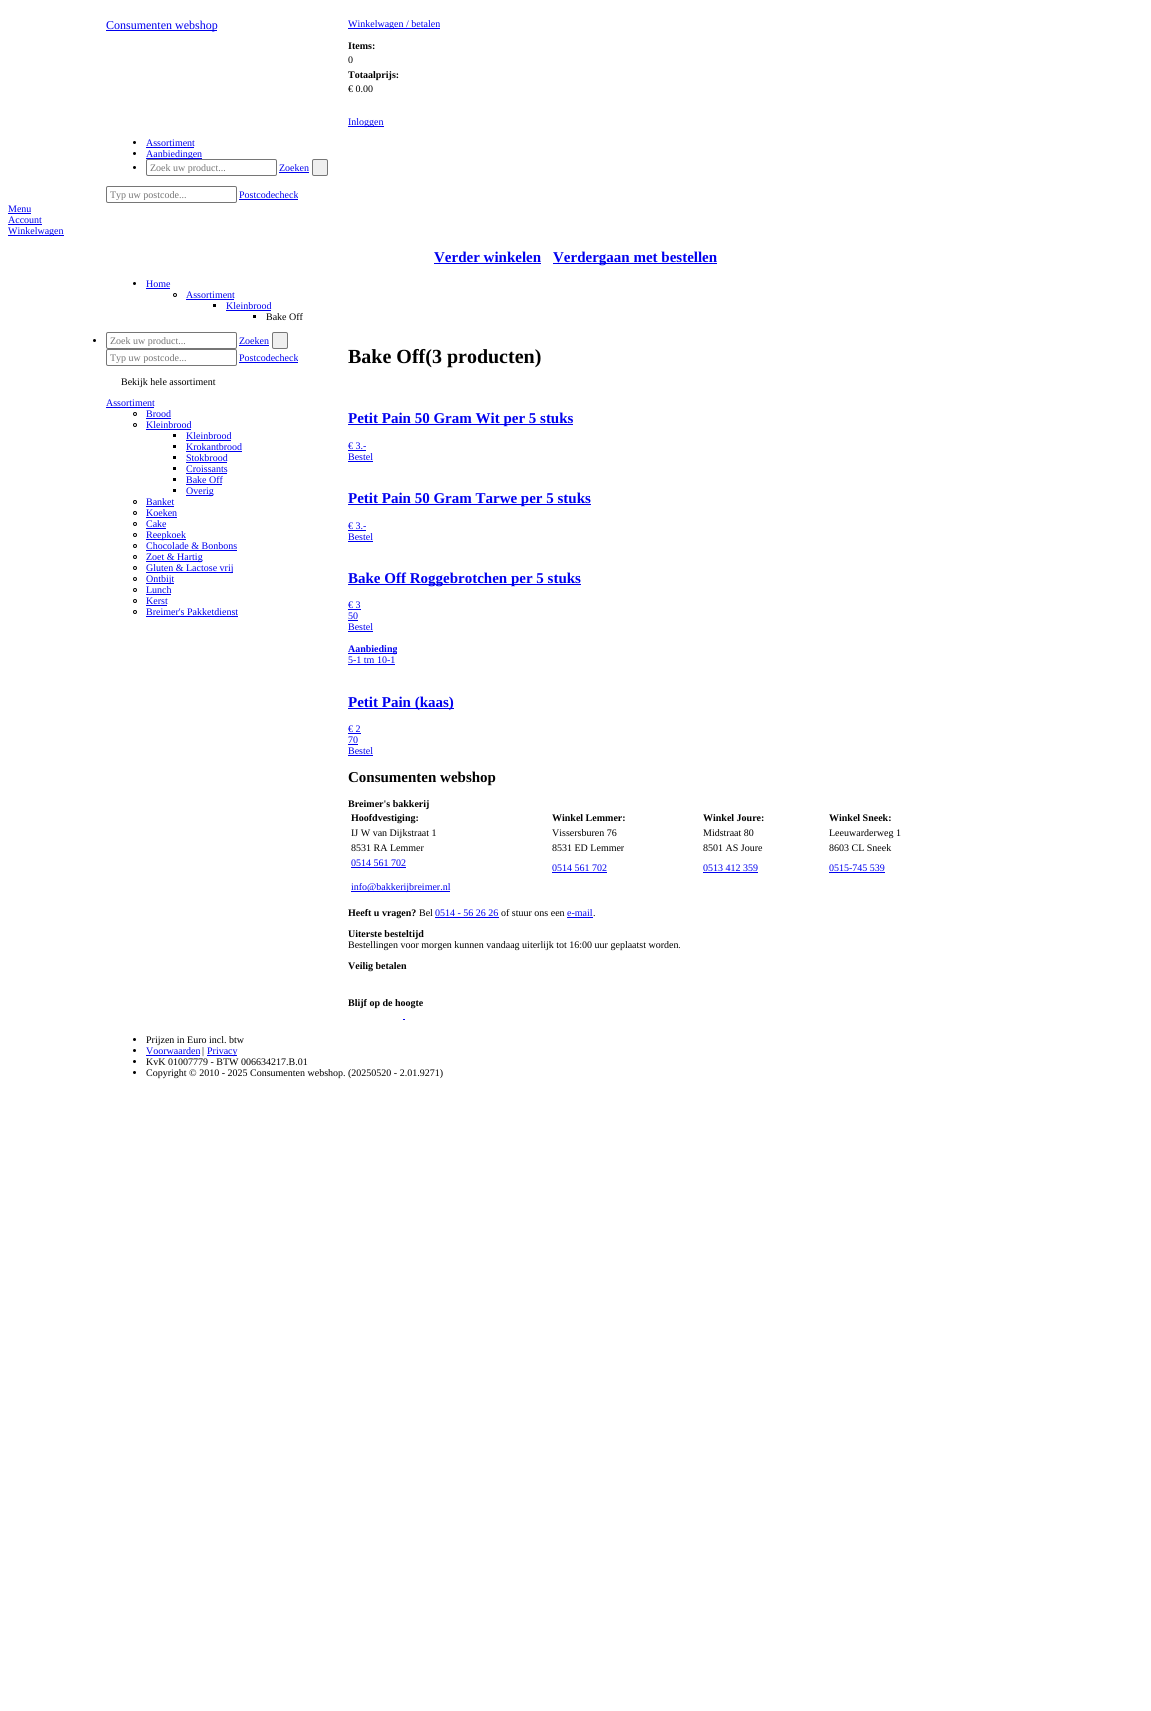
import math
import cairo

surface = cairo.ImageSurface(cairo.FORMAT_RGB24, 1151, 1711)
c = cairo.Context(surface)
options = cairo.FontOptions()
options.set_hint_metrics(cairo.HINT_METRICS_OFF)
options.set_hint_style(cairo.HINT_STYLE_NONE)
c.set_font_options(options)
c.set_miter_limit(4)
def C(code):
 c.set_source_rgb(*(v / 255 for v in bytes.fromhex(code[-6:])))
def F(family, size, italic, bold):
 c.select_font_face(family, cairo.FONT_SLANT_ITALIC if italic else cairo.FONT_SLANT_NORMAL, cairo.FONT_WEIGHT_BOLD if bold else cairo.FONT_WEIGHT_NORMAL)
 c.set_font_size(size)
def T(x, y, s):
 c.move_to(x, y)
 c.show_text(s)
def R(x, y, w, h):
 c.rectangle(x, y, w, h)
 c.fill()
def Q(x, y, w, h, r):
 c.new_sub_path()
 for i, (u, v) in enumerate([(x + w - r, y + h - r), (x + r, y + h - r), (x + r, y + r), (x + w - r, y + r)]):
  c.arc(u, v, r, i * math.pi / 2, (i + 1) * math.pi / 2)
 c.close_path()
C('ffffff')
c.paint()
C('0000ee')
R(106,30,111,1)
F('Liberation Serif',12,0,0)
T(106,29,'Consumenten webshop')
R(348,28,92,1)
F('Liberation Serif',10,0,0)
T(348,27,'Winkelwagen / betalen')
F('Liberation Serif',10,0,1)
C('000000')
T(348,49,'Items:')
F('Liberation Serif',10,0,0)
T(348,63,'0')
F('Liberation Serif',10,0,1)
T(348,78,'Totaalprijs:')
F('Liberation Serif',10,0,0)
T(348,92,'€ 0.00')
C('0000ee')
R(348,126,36,1)
T(348,125,'Inloggen')
C('000000')
c.new_path()
c.arc(134.5,142.5,1.5,0,2 * math.pi)
c.fill()
C('0000ee')
T(146,146,'Assortiment')
R(146,147,48,1)
C('000000')
c.new_path()
c.arc(134.5,153.5,1.5,0,2 * math.pi)
c.fill()
C('0000ee')
R(146,158,56,1)
T(146,157,'Aanbiedingen')
C('000000')
c.new_path()
c.arc(134.5,167.5,1.5,0,2 * math.pi)
c.fill()
C('ffffff')
Q(146.5,159.5,130,16,1.5)
c.fill_preserve()
C('767676')
c.set_line_width(1)
c.stroke()
c.save()
c.rectangle(150,162,123,11)
c.clip()
C('757575')
T(150,171,'Zoek uw product...')
c.restore()
C('0000ee')
T(279,171,'Zoeken')
R(279,172,30,1)
C('efefef')
Q(312.5,159.5,15,16,1.5)
c.fill_preserve()
C('767676')
c.stroke()
Q(106.5,186.5,130,16,1.5)
c.stroke()
c.save()
c.rectangle(110,189,123,11)
c.clip()
C('757575')
T(110,198,'Typ uw postcode...')
c.restore()
C('0000ee')
T(239,198,'Postcodecheck')
R(239,199,59,1)
T(8,212,'Menu')
R(8,213,23,1)
T(8,223,'Account')
R(8,224,34,1)
R(8,235,56,1)
T(8,234,'Winkelwagen')
F('Liberation Serif',15,0,1)
T(434,262,'Verder winkelen')
R(434,263,107,1)
R(553,263,164,1)
T(553,262,'Verdergaan met bestellen')
C('000000')
c.new_path()
c.arc(134.5,283.5,1.5,0,2 * math.pi)
c.fill()
F('Liberation Serif',10,0,0)
C('0000ee')
T(146,287,'Home')
R(146,288,24,1)
c.new_path()
c.arc(175,295,1.5,0,2 * math.pi)
C('000000')
c.stroke()
C('0000ee')
T(186,298,'Assortiment')
R(186,299,48,1)
C('000000')
R(213,304,3,3)
C('0000ee')
T(226,309,'Kleinbrood')
R(226,310,45,1)
C('000000')
R(253,315,3,3)
T(266,320,'Bake Off')
c.new_path()
c.arc(94.5,340.5,1.5,0,2 * math.pi)
c.fill()
Q(106.5,332.5,130,16,1.5)
C('767676')
c.stroke()
c.save()
c.rectangle(110,335,123,11)
c.clip()
C('757575')
T(110,344,'Zoek uw product...')
c.restore()
C('0000ee')
T(239,344,'Zoeken')
R(239,345,30,1)
C('efefef')
Q(272.5,332.5,15,16,1.5)
c.fill_preserve()
C('767676')
c.stroke()
Q(106.5,349.5,130,16,1.5)
c.stroke()
c.save()
c.rectangle(110,352,123,11)
c.clip()
C('757575')
T(110,361,'Typ uw postcode...')
c.restore()
C('0000ee')
T(239,361,'Postcodecheck')
R(239,362,59,1)
C('000000')
T(121,385,'Bekijk hele assortiment')
C('0000ee')
T(106,406,'Assortiment')
R(106,407,48,1)
c.new_path()
c.arc(135,414,1.5,0,2 * math.pi)
C('000000')
c.stroke()
C('0000ee')
T(146,417,'Brood')
R(146,418,25,1)
c.new_path()
c.arc(135,425,1.5,0,2 * math.pi)
C('000000')
c.stroke()
C('0000ee')
T(146,428,'Kleinbrood')
R(146,429,45,1)
C('000000')
R(173,434,3,3)
C('0000ee')
T(186,439,'Kleinbrood')
R(186,440,45,1)
C('000000')
R(173,445,3,3)
C('0000ee')
T(186,450,'Krokantbrood')
R(186,451,56,1)
C('000000')
R(173,456,3,3)
C('0000ee')
T(186,461,'Stokbrood')
R(186,462,41,1)
C('000000')
R(173,467,3,3)
C('0000ee')
T(186,472,'Croissants')
R(186,473,41,1)
C('000000')
R(173,478,3,3)
C('0000ee')
T(186,483,'Bake Off')
R(186,484,36,1)
C('000000')
R(173,489,3,3)
C('0000ee')
R(186,495,27,1)
T(186,494,'Overig')
c.new_path()
c.arc(135,502,1.5,0,2 * math.pi)
C('000000')
c.stroke()
C('0000ee')
T(146,505,'Banket')
R(146,506,28,1)
c.new_path()
c.arc(135,513,1.5,0,2 * math.pi)
C('000000')
c.stroke()
C('0000ee')
T(146,516,'Koeken')
R(146,517,31,1)
c.new_path()
c.arc(135,524,1.5,0,2 * math.pi)
C('000000')
c.stroke()
C('0000ee')
T(146,527,'Cake')
R(146,528,20,1)
c.new_path()
c.arc(135,535,1.5,0,2 * math.pi)
C('000000')
c.stroke()
C('0000ee')
R(146,539,40,1)
T(146,538,'Reepkoek')
c.new_path()
c.arc(135,546,1.5,0,2 * math.pi)
C('000000')
c.stroke()
C('0000ee')
T(146,549,'Chocolade & Bonbons')
R(146,550,91,1)
c.new_path()
c.arc(135,557,1.5,0,2 * math.pi)
C('000000')
c.stroke()
C('0000ee')
R(146,561,56,1)
T(146,560,'Zoet & Hartig')
c.new_path()
c.arc(135,568,1.5,0,2 * math.pi)
C('000000')
c.stroke()
C('0000ee')
R(146,572,87,1)
T(146,571,'Gluten & Lactose vrij')
c.new_path()
c.arc(135,579,1.5,0,2 * math.pi)
C('000000')
c.stroke()
C('0000ee')
R(146,583,28,1)
T(146,582,'Ontbijt')
c.new_path()
c.arc(135,590,1.5,0,2 * math.pi)
C('000000')
c.stroke()
C('0000ee')
T(146,593,'Lunch')
R(146,594,25,1)
c.new_path()
c.arc(135,601,1.5,0,2 * math.pi)
C('000000')
c.stroke()
C('0000ee')
T(146,604,'Kerst')
R(146,605,21,1)
c.new_path()
c.arc(135,612,1.5,0,2 * math.pi)
C('000000')
c.stroke()
C('0000ee')
T(146,615,'Breimer\'s Pakketdienst')
R(146,616,92,1)
F('Liberation Serif',20,0,1)
C('000000')
T(348,363,'Bake Off(3 producten)')
C('0000ee')
R(348,424,225,1)
F('Liberation Serif',15,0,1)
T(348,423,'Petit Pain 50 Gram Wit per 5 stuks')
F('Liberation Serif',10,0,0)
T(348,449,'€ 3.-')
R(348,450,18,1)
T(348,460,'Bestel')
R(348,461,25,1)
R(348,504,243,1)
F('Liberation Serif',15,0,1)
T(348,503,'Petit Pain 50 Gram Tarwe per 5 stuks')
F('Liberation Serif',10,0,0)
T(348,529,'€ 3.-')
R(348,530,18,1)
T(348,540,'Bestel')
R(348,541,25,1)
R(348,584,233,1)
F('Liberation Serif',15,0,1)
T(348,583,'Bake Off Roggebrotchen per 5 stuks')
F('Liberation Serif',10,0,0)
T(348,608,'€ 3')
R(348,609,13,1)
T(348,619,'50')
R(348,620,10,1)
T(348,630,'Bestel')
R(348,631,25,1)
R(348,653,49,1)
F('Liberation Serif',10,0,1)
T(348,652,'Aanbieding')
F('Liberation Serif',10,0,0)
T(348,663,'5-1 tm 10-1')
R(348,664,47,1)
R(348,708,106,1)
F('Liberation Serif',15,0,1)
T(348,707,'Petit Pain (kaas)')
F('Liberation Serif',10,0,0)
T(348,732,'€ 2')
R(348,733,13,1)
T(348,743,'70')
R(348,744,10,1)
T(348,754,'Bestel')
R(348,755,25,1)
F('Liberation Serif',15,0,1)
C('000000')
T(348,782,'Consumenten webshop')
F('Liberation Serif',10,0,1)
T(348,807,'Breimer\'s bakkerij')
T(351,821,'Hoofdvestiging:')
T(552,821,'Winkel Lemmer:')
T(703,821,'Winkel Joure:')
T(829,821,'Winkel Sneek:')
F('Liberation Serif',10,0,0)
T(351,836,'IJ W van Dijkstraat 1')
T(552,836,'Vissersburen 76')
T(703,836,'Midstraat 80')
T(829,836,'Leeuwarderweg 1')
T(351,851,'8531 RA Lemmer')
T(552,851,'8531 ED Lemmer')
T(703,851,'8501 AS Joure')
T(829,851,'8603 CL Sneek')
C('0000ee')
T(351,866,'0514 561 702')
R(351,867,55,1)
T(552,871,'0514 561 702')
R(552,872,55,1)
T(703,871,'0513 412 359')
R(703,872,55,1)
T(829,871,'0515-745 539')
R(829,872,56,1)
R(351,891,99,1)
T(351,890,'info@bakkerijbreimer.nl')
F('Liberation Serif',10,0,1)
C('000000')
T(348,916,'Heeft u vragen?')
F('Liberation Serif',10,0,0)
T(419,916,'Bel')
C('0000ee')
T(435,916,'0514 - 56 26 26')
R(435,917,64,1)
C('000000')
T(501,916,'of stuur ons een')
C('0000ee')
T(567,916,'e-mail')
R(567,917,26,1)
C('000000')
T(593,916,'.')
F('Liberation Serif',10,0,1)
T(348,937,'Uiterste besteltijd')
F('Liberation Serif',10,0,0)
T(348,948,'Bestellingen voor morgen kunnen vandaag uiterlijk tot 16:00 uur geplaatst worden.')
F('Liberation Serif',10,0,1)
T(348,969,'Veilig betalen')
T(348,1006,'Blijf op de hoogte')
C('0000ee')
R(403,1019,2,1)
C('000000')
c.new_path()
c.arc(134.5,1039.5,1.5,0,2 * math.pi)
c.fill()
F('Liberation Serif',10,0,0)
T(146,1043,'Prijzen in Euro incl. btw')
c.new_path()
c.arc(134.5,1050.5,1.5,0,2 * math.pi)
c.fill()
C('0000ee')
T(146,1054,'Voorwaarden')
R(146,1055,54,1)
C('000000')
T(202,1054,'|')
C('0000ee')
R(207,1055,30,1)
T(207,1054,'Privacy')
C('000000')
c.new_path()
c.arc(134.5,1061.5,1.5,0,2 * math.pi)
c.fill()
T(146,1065,'KvK 01007779 - BTW 006634217.B.01')
c.new_path()
c.arc(134.5,1072.5,1.5,0,2 * math.pi)
c.fill()
T(146,1076,'Copyright © 2010 - 2025 Consumenten webshop. (20250520 - 2.01.9271)')
surface.write_to_png('o.png')
